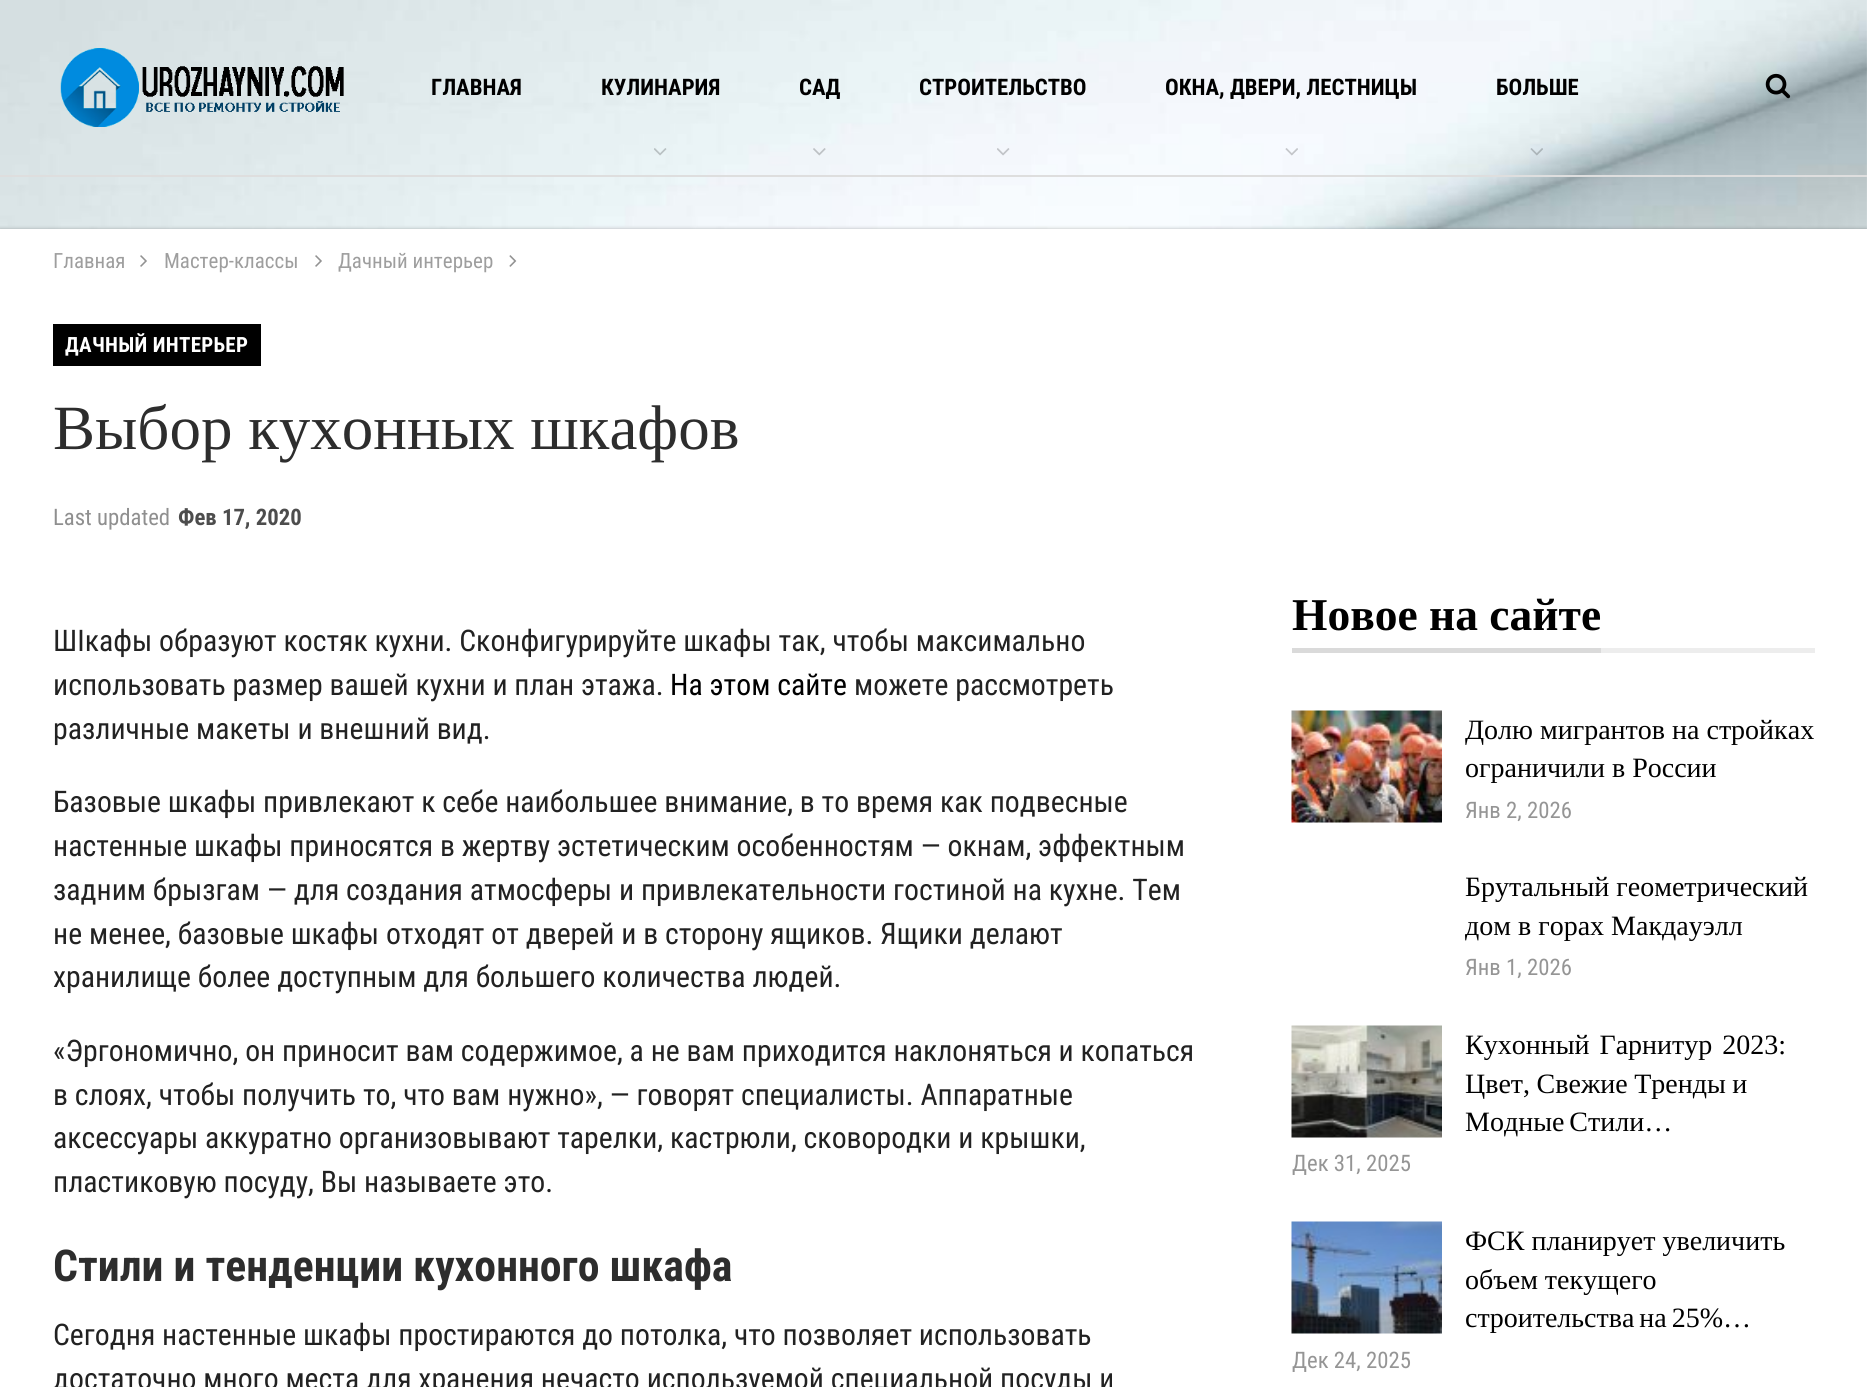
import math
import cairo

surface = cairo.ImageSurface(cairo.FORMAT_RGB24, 1867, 1387)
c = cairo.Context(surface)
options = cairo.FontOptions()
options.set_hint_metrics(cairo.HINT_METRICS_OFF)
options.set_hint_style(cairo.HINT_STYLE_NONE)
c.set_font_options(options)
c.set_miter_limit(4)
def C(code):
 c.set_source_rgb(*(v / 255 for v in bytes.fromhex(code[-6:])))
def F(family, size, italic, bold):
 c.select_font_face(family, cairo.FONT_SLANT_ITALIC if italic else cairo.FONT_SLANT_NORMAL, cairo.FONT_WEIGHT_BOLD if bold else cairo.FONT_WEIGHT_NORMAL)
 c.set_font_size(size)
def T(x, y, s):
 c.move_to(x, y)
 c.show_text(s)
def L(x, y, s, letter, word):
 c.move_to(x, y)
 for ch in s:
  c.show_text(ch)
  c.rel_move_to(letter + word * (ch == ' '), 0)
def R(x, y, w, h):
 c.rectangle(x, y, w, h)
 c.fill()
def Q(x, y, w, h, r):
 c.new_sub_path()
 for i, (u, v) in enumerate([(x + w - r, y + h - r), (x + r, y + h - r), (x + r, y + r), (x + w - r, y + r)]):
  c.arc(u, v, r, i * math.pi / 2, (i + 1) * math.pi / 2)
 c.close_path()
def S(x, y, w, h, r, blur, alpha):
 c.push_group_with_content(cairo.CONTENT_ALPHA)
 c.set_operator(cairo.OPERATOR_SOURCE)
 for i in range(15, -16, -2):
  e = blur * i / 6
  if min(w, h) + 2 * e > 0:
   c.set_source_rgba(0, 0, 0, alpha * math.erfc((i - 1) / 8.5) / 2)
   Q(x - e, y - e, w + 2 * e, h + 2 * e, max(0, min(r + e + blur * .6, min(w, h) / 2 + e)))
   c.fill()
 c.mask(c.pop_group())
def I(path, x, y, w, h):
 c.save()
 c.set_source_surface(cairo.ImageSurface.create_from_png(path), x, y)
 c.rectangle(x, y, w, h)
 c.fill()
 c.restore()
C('ffffff')
c.paint()
I('1.png',0,0,1867,229)
C('dedede')
R(0,175,1867,2)
I('2.png',60,48,284,79)
F('Roboto Condensed',22.75,0,1)
C('000000')
T(431,95,'ГЛАВНАЯ')
T(601,95,'КУЛИНАРИЯ')
I('3.png',654,148,13,8)
T(799,95,'САД')
I('4.png',813,148,13,8)
T(919,95,'СТРОИТЕЛЬСТВО')
I('5.png',997,148,13,8)
T(1165,95,'ОКНА, ДВЕРИ, ЛЕСТНИЦЫ')
I('6.png',1285,148,13,8)
T(1496,95,'БОЛЬШЕ')
I('7.png',1530,148,13,8)
I('8.png',1765,73,26,26)
C('000000')
S(0,229,1867,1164,0,2,.27)
C('ffffff')
R(0,229,1867,1158)
F('Roboto Condensed',21,0,0)
C('9e9e9e')
T(53,268,'Главная')
I('9.png',140,255,7,12)
T(164,268,'Мастер-классы')
I('9.png',315,255,7,12)
T(338,268,'Дачный интерьер')
I('10.png',509,255,8,12)
C('000000')
R(53,324,208,42)
F('Roboto Condensed',21,0,1)
C('ffffff')
L(65,352,'ДАЧНЫЙ ИНТЕРЬЕР',.3,0)
F('Liberation Serif',63,0,0)
C('2d2d2d')
T(53,449,'Выбор кухонных шкафов')
F('Roboto Condensed',22.75,0,0)
C('8f8f8f')
T(53,525,'Last updated')
F('Roboto Condensed',22.75,0,1)
C('4d4d4d')
T(178,525,'Фев 17, 2020')
F('Roboto Condensed',29.75,0,0)
C('222222')
T(53,651,'ШIкафы образуют костяк кухни. Сконфигурируйте шкафы так, чтобы максимально')
T(53,695,'использовать размер вашей кухни и план этажа.')
C('000000')
T(670,695,'На этом сайте')
C('222222')
T(854,695,'можете рассмотреть')
T(53,739,'различные макеты и внешний вид.')
T(53,812,'Базовые шкафы привлекают к себе наибольшее внимание, в то время как подвесные')
T(53,856,'настенные шкафы приносятся в жертву эстетическим особенностям — окнам, эффектным')
T(53,900,'задним брызгам — для создания атмосферы и привлекательности гостиной на кухне. Тем')
T(53,944,'не менее, базовые шкафы отходят от дверей и в сторону ящиков. Ящики делают')
T(53,987,'хранилище более доступным для большего количества людей.')
T(53,1061,'«Эргономично, он приносит вам содержимое, а не вам приходится наклоняться и копаться')
T(53,1105,'в слоях, чтобы получить то, что вам нужно», — говорят специалисты. Аппаратные')
T(53,1148,'аксессуары аккуратно организовывают тарелки, кастрюли, сковородки и крышки,')
T(53,1192,'пластиковую посуду, Вы называете это.')
F('Roboto Condensed',43.75,0,1)
C('2d2d2d')
T(53,1281,'Стили и тенденции кухонного шкафа')
F('Roboto Condensed',29.75,0,0)
C('222222')
T(53,1345,'Сегодня настенные шкафы простираются до потолка, что позволяет использовать')
T(53,1389,'достаточно много места для хранения нечасто используемой специальной посуды и')
F('Liberation Serif',45.5,0,1)
C('000000')
T(1292,630,'Новое на сайте')
C('dadada')
R(1292,648,309,5)
C('ededed')
R(1601,648,214,5)
I('11.png',1291,710,151,113)
F('Liberation Serif',28,0,0)
C('000000')
T(1465,739,'Долю мигрантов на стройках')
T(1465,777,'ограничили в России')
F('Roboto Condensed',22.75,0,0)
C('959595')
T(1465,818,'Янв 2, 2026')
F('Liberation Serif',28,0,0)
C('000000')
T(1465,896,'Брутальный геометрический')
T(1465,935,'дом в горах Макдауэлл')
F('Roboto Condensed',22.75,0,0)
C('959595')
T(1465,975,'Янв 1, 2026')
I('12.png',1291,1025,151,113)
F('Liberation Serif',28,0,0)
C('000000')
L(1465,1054,'Кухонный Гарнитур 2023:',0,3)
L(1465,1093,'Цвет, Свежие Тренды и',0,-.5)
L(1465,1131,'Модные Стили…',0,-2)
F('Roboto Condensed',22.75,0,0)
C('959595')
T(1292,1171,'Дек 31, 2025')
I('13.png',1291,1221,151,113)
F('Liberation Serif',28,0,0)
C('000000')
T(1465,1250,'ФСК планирует увеличить')
T(1465,1289,'объем текущего')
L(1465,1327,'строительства на 25%…',0,-2)
F('Roboto Condensed',22.75,0,0)
C('959595')
T(1292,1368,'Дек 24, 2025')
surface.write_to_png('o.png')
